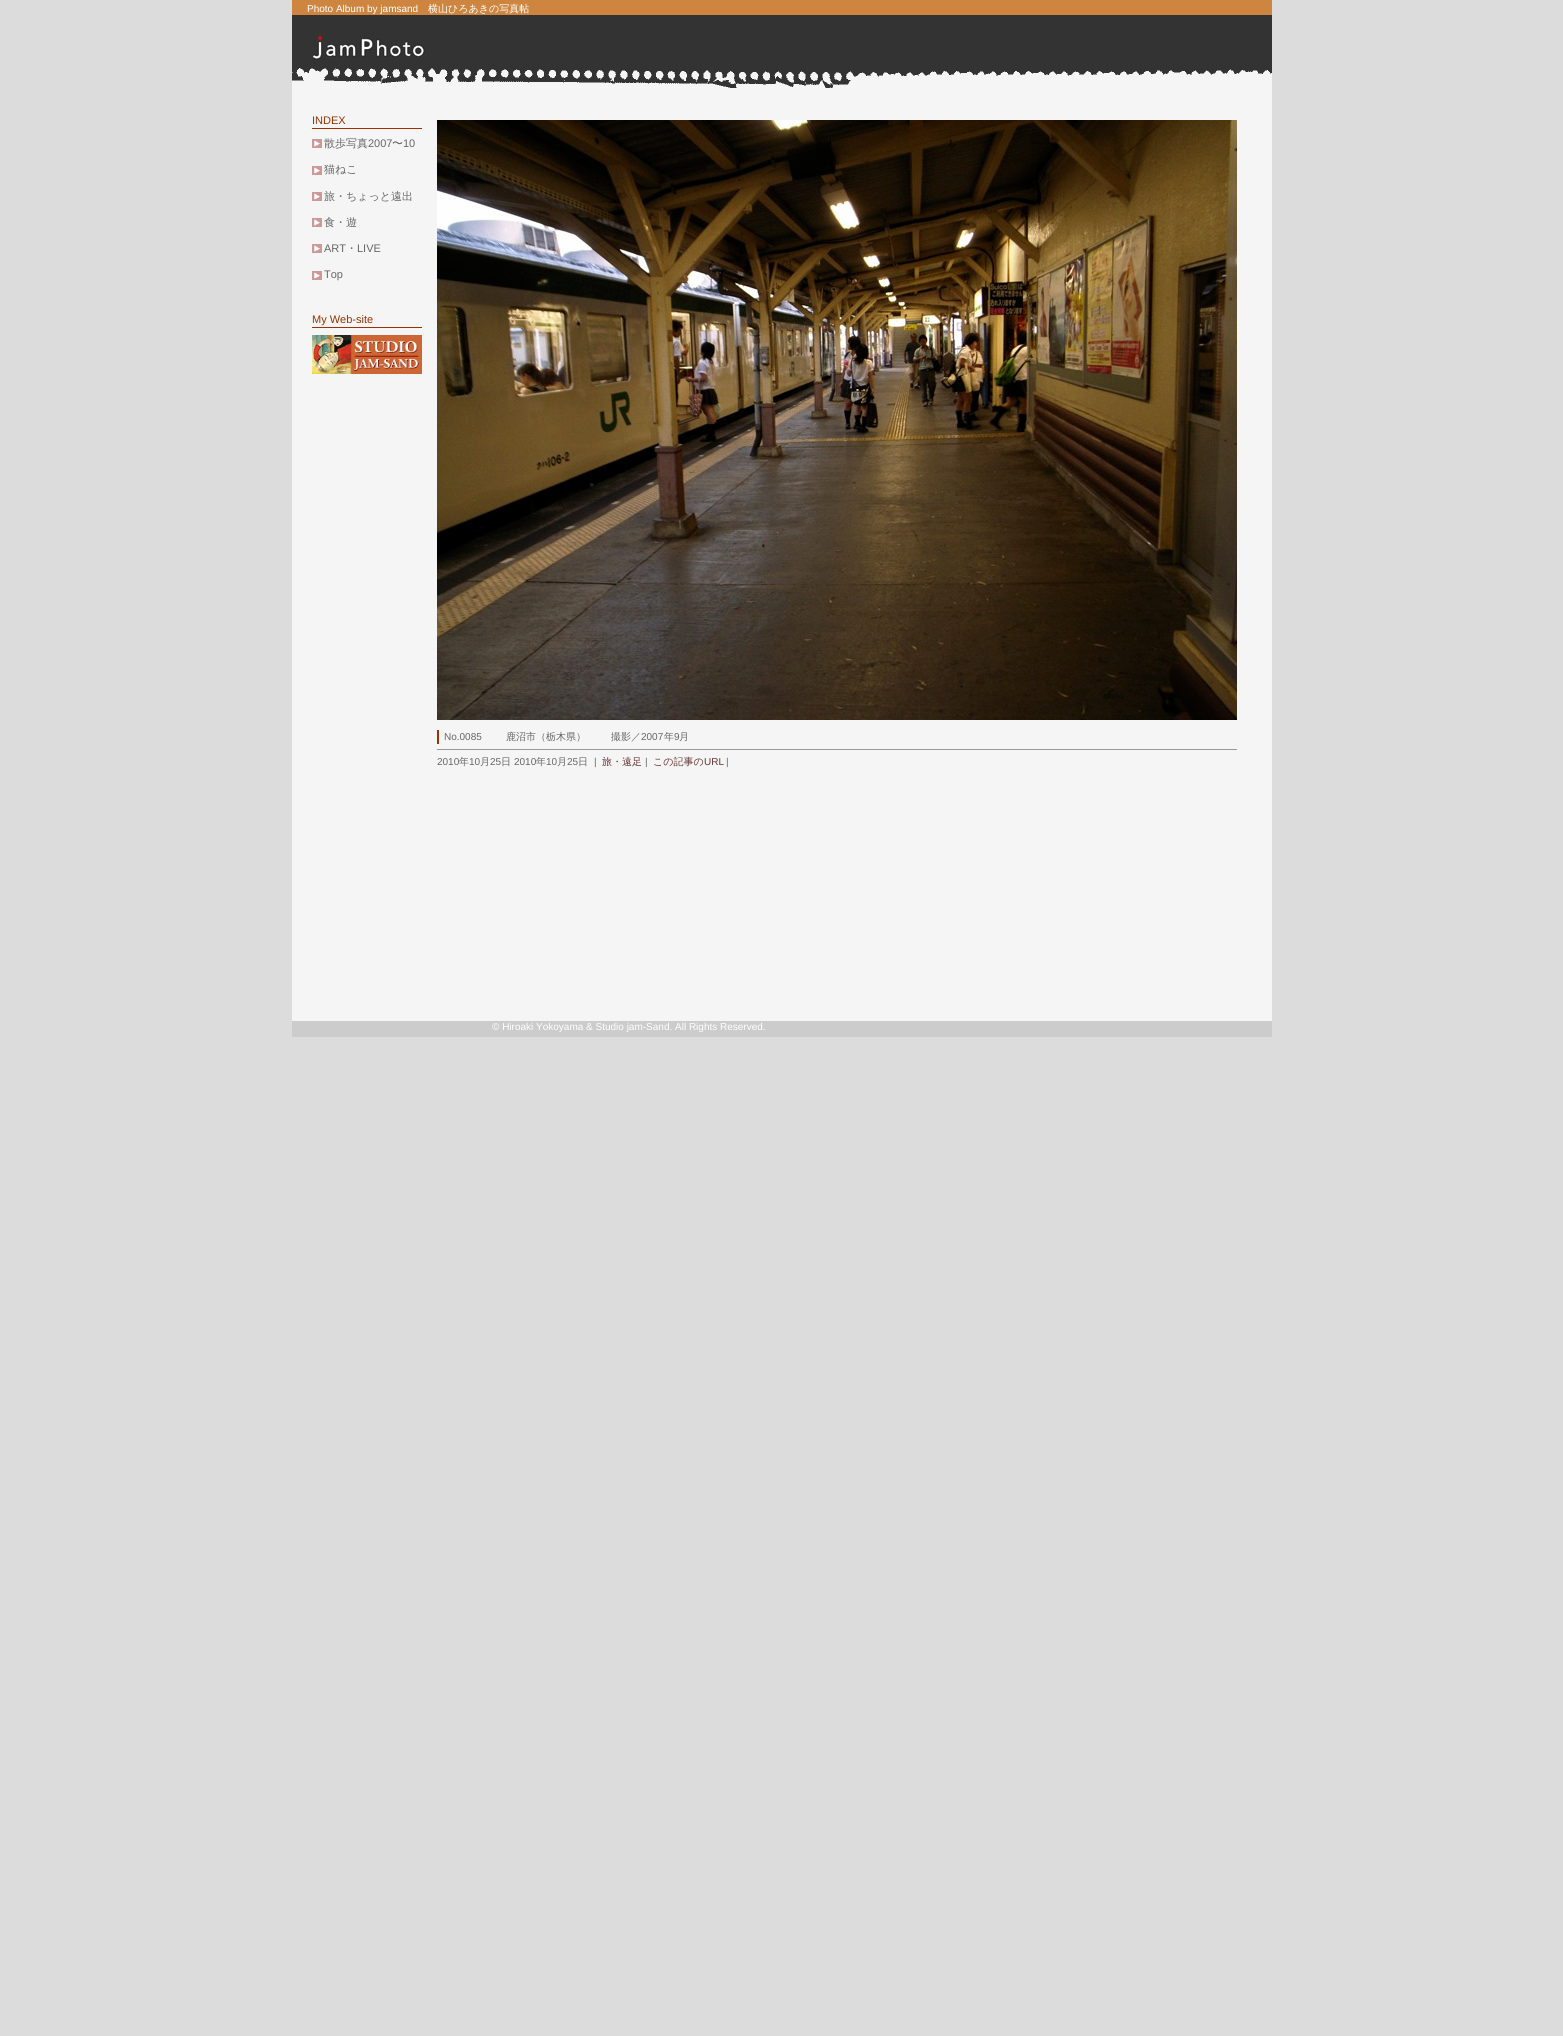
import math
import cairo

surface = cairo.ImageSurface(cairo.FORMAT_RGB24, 1563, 2036)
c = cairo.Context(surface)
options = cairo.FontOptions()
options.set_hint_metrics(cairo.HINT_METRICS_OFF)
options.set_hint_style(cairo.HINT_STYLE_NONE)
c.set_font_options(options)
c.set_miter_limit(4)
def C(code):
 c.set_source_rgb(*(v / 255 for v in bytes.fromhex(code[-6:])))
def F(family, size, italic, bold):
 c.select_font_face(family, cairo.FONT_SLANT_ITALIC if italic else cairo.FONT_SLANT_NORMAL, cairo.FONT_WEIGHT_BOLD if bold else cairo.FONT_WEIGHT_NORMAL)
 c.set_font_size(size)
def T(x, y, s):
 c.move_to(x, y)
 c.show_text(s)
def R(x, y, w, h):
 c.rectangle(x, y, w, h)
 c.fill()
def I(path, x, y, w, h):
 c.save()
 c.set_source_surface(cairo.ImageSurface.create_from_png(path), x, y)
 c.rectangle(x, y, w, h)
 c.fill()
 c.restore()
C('dcdcdc')
c.paint()
C('f5f5f5')
R(292,88,980,933)
C('333333')
R(292,15,980,53)
C('cd853f')
R(292,0,980,15)
F('Liberation Sans',10,0,0)
C('ffffff')
T(307,12,'Photo Album by jamsand')
F('WenQuanYi Zen Hei Medium',10,0,0)
T(428,12,'横山ひろあきの写真帖')
I('1.png',313,35,112,25)
I('2.png',292,68,980,20)
C('993300')
R(312,128,110,1)
F('Liberation Sans',11,0,0)
T(312,124,'INDEX')
I('3.png',312,139,10,9)
F('WenQuanYi Zen Hei Medium',11,0,0)
C('666666')
T(324,147,'散歩写真')
F('Liberation Sans',11,0,0)
T(368,147,'2007')
F('WenQuanYi Zen Hei Medium',11,0,0)
T(392,147,'〜')
F('Liberation Sans',11,0,0)
T(403,147,'10')
I('3.png',312,166,10,9)
F('WenQuanYi Zen Hei Medium',11,0,0)
T(324,173,'猫ねこ')
I('3.png',312,192,10,9)
T(324,200,'旅・ちょっと遠出')
I('3.png',312,218,10,9)
T(324,226,'食・遊')
I('3.png',312,244,10,9)
F('Liberation Sans',11,0,0)
T(324,252,'ART')
F('WenQuanYi Zen Hei Medium',11,0,0)
T(346,252,'・')
F('Liberation Sans',11,0,0)
T(357,252,'LIVE')
I('3.png',312,271,10,9)
T(324,278,'Top')
C('993300')
R(312,327,110,1)
T(312,323,'My Web-site')
I('4.png',312,335,110,39)
I('5.png',437,120,800,600)
R(437,730,2,14)
F('Liberation Sans',10,0,0)
C('666666')
T(444,740,'No.0085')
F('WenQuanYi Zen Hei Medium',10,0,0)
T(506,740,'鹿沼市（栃木県）')
T(611,740,'撮影／')
F('Liberation Sans',10,0,0)
T(641,740,'2007')
F('WenQuanYi Zen Hei Medium',10,0,0)
T(664,740,'年')
F('Liberation Sans',10,0,0)
T(674,740,'9')
F('WenQuanYi Zen Hei Medium',10,0,0)
T(679,740,'月')
C('999999')
R(437,749,800,1)
F('Liberation Sans',10,0,0)
C('666666')
T(437,765,'2010')
F('WenQuanYi Zen Hei Medium',10,0,0)
T(459,765,'年')
F('Liberation Sans',10,0,0)
T(469,765,'10')
F('WenQuanYi Zen Hei Medium',10,0,0)
T(480,765,'月')
F('Liberation Sans',10,0,0)
T(490,765,'25')
F('WenQuanYi Zen Hei Medium',10,0,0)
T(501,765,'日')
F('Liberation Sans',10,0,0)
T(514,765,'2010')
F('WenQuanYi Zen Hei Medium',10,0,0)
T(536,765,'年')
F('Liberation Sans',10,0,0)
T(546,765,'10')
F('WenQuanYi Zen Hei Medium',10,0,0)
T(557,765,'月')
F('Liberation Sans',10,0,0)
T(567,765,'25')
F('WenQuanYi Zen Hei Medium',10,0,0)
T(578,765,'日')
F('Liberation Sans',10,0,0)
T(594,765,'|')
F('WenQuanYi Zen Hei Medium',10,0,0)
C('663333')
T(602,765,'旅・遠足')
F('Liberation Sans',10,0,0)
C('666666')
T(645,765,'|')
F('WenQuanYi Zen Hei Medium',10,0,0)
C('663333')
T(653,765,'この記事の')
F('Liberation Sans',10,0,0)
T(704,765,'URL')
C('666666')
T(726,765,'|')
C('cccccc')
R(292,1021,980,16)
C('ffffff')
T(492,1030,'© Hiroaki Yokoyama & Studio jam-Sand. All Rights Reserved.')
surface.write_to_png('o.png')
